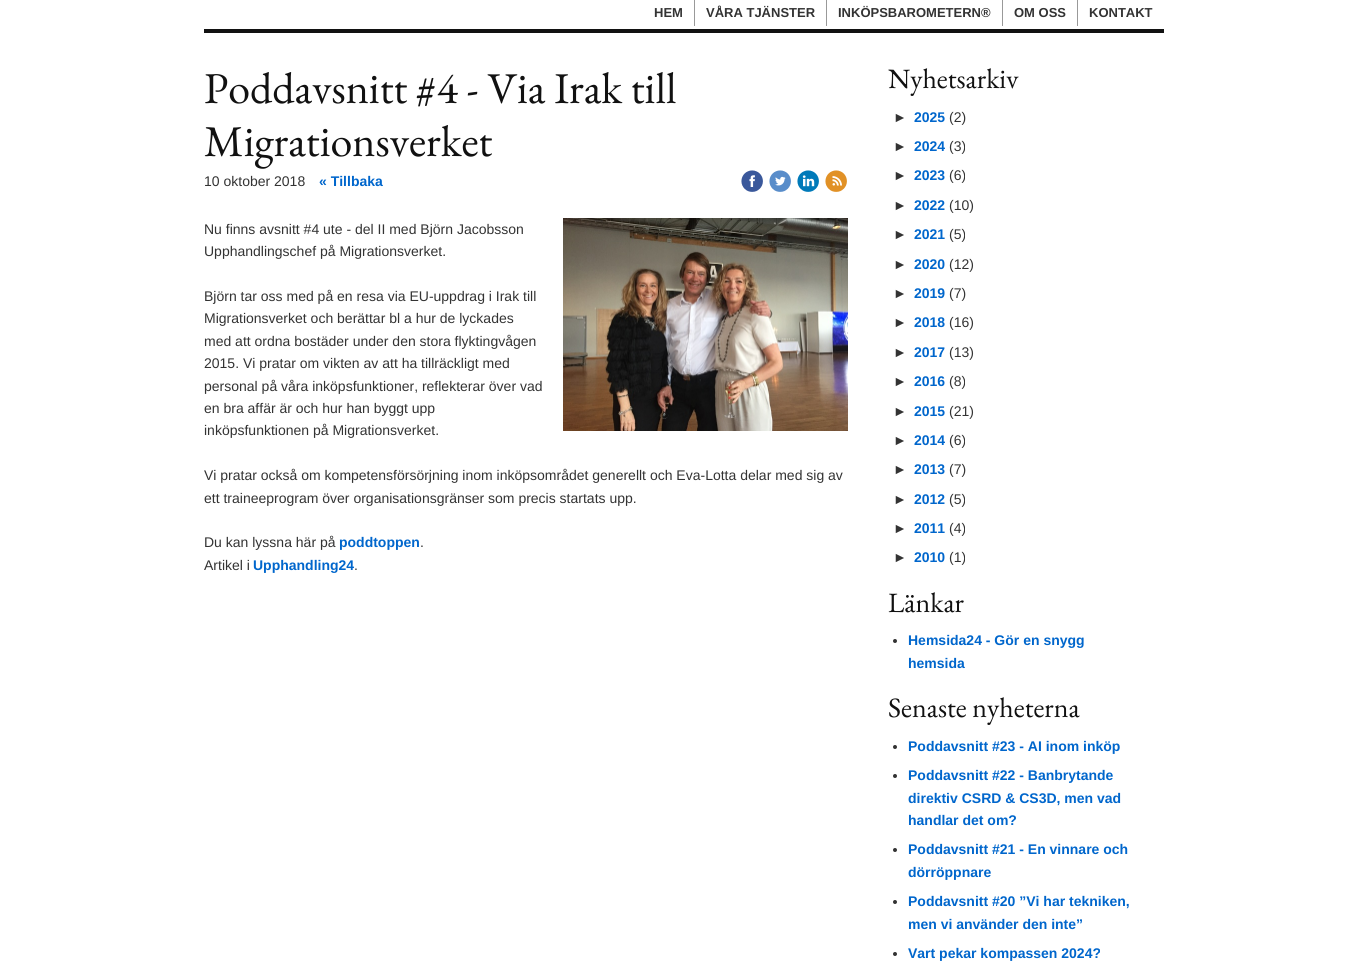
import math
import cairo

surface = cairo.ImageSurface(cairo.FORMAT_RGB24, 1367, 973)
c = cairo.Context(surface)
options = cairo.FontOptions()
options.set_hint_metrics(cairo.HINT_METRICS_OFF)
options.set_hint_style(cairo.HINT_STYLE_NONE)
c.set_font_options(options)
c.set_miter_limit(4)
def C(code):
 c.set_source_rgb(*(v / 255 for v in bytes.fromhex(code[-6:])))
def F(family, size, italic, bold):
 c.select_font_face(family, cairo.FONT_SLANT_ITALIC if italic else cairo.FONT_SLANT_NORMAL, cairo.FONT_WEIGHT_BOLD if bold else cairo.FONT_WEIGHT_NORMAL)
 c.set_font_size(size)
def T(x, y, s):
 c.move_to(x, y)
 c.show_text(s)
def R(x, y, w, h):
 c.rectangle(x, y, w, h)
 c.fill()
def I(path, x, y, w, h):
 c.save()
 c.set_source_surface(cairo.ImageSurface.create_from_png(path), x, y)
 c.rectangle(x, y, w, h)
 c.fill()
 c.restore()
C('ffffff')
c.paint()
F('Liberation Sans',13,0,1)
C('333333')
T(654,17,'HEM')
C('999999')
R(694,0,1,26)
C('333333')
T(706,17,'VÅRA TJÄNSTER')
C('999999')
R(826,0,1,26)
C('333333')
T(838,17,'INKÖPSBAROMETERN®')
C('999999')
R(1002,0,1,26)
C('333333')
T(1014,17,'OM OSS')
C('999999')
R(1077,0,1,26)
C('333333')
T(1089,17,'KONTAKT')
C('121212')
R(204,29,960,4)
F('EB Garamond',44,0,0)
C('111111')
T(204,103,'Poddavsnitt #4 - Via Irak till')
T(204,156,'Migrationsverket')
F('Liberation Sans',14,0,0)
C('333333')
T(204,186,'10 oktober 2018')
F('Liberation Sans',14,0,1)
C('0066cc')
T(319,186,'« Tillbaka')
I('1.png',741,170,22,22)
I('2.png',769,170,22,22)
I('3.png',797,170,22,22)
I('4.png',825,170,22,22)
I('5.png',563,218,285,213)
F('Liberation Sans',14,0,0)
C('333333')
T(204,234,'Nu finns avsnitt #4 ute - del II med Björn Jacobsson')
T(204,256,'Upphandlingschef på Migrationsverket.')
T(204,301,'Björn tar oss med på en resa via EU-uppdrag i Irak till')
T(204,323,'Migrationsverket och berättar bl a hur de lyckades')
T(204,346,'med att ordna bostäder under den stora flyktingvågen')
T(204,368,'2015. Vi pratar om vikten av att ha tillräckligt med')
T(204,391,'personal på våra inköpsfunktioner, reflekterar över vad')
T(204,413,'en bra affär är och hur han byggt upp')
T(204,435,'inköpsfunktionen på Migrationsverket.')
T(204,480,'Vi pratar också om kompetensförsörjning inom inköpsområdet generellt och Eva-Lotta delar med sig av')
T(204,503,'ett traineeprogram över organisationsgränser som precis startats upp.')
T(204,547,'Du kan lyssna här på')
F('Liberation Sans',14,0,1)
C('0066cc')
T(339,547,'poddtoppen')
F('Liberation Sans',14,0,0)
C('333333')
T(420,547,'.')
T(204,570,'Artikel i')
F('Liberation Sans',14,0,1)
C('0066cc')
T(253,570,'Upphandling24')
F('Liberation Sans',14,0,0)
C('333333')
T(354,570,'.')
F('EB Garamond',28,0,0)
C('111111')
T(888,88,'Nyhetsarkiv')
F('Liberation Sans',14,0,0)
C('333333')
T(893,122,'►')
F('Liberation Sans',14,0,1)
C('0066cc')
T(914,122,'2025')
F('Liberation Sans',14,0,0)
C('333333')
T(949,122,'(2)')
T(893,151,'►')
F('Liberation Sans',14,0,1)
C('0066cc')
T(914,151,'2024')
F('Liberation Sans',14,0,0)
C('333333')
T(949,151,'(3)')
T(893,180,'►')
F('Liberation Sans',14,0,1)
C('0066cc')
T(914,180,'2023')
F('Liberation Sans',14,0,0)
C('333333')
T(949,180,'(6)')
T(893,210,'►')
F('Liberation Sans',14,0,1)
C('0066cc')
T(914,210,'2022')
F('Liberation Sans',14,0,0)
C('333333')
T(949,210,'(10)')
T(893,239,'►')
F('Liberation Sans',14,0,1)
C('0066cc')
T(914,239,'2021')
F('Liberation Sans',14,0,0)
C('333333')
T(949,239,'(5)')
T(893,269,'►')
F('Liberation Sans',14,0,1)
C('0066cc')
T(914,269,'2020')
F('Liberation Sans',14,0,0)
C('333333')
T(949,269,'(12)')
T(893,298,'►')
F('Liberation Sans',14,0,1)
C('0066cc')
T(914,298,'2019')
F('Liberation Sans',14,0,0)
C('333333')
T(949,298,'(7)')
T(893,327,'►')
F('Liberation Sans',14,0,1)
C('0066cc')
T(914,327,'2018')
F('Liberation Sans',14,0,0)
C('333333')
T(949,327,'(16)')
T(893,357,'►')
F('Liberation Sans',14,0,1)
C('0066cc')
T(914,357,'2017')
F('Liberation Sans',14,0,0)
C('333333')
T(949,357,'(13)')
T(893,386,'►')
F('Liberation Sans',14,0,1)
C('0066cc')
T(914,386,'2016')
F('Liberation Sans',14,0,0)
C('333333')
T(949,386,'(8)')
T(893,416,'►')
F('Liberation Sans',14,0,1)
C('0066cc')
T(914,416,'2015')
F('Liberation Sans',14,0,0)
C('333333')
T(949,416,'(21)')
T(893,445,'►')
F('Liberation Sans',14,0,1)
C('0066cc')
T(914,445,'2014')
F('Liberation Sans',14,0,0)
C('333333')
T(949,445,'(6)')
T(893,474,'►')
F('Liberation Sans',14,0,1)
C('0066cc')
T(914,474,'2013')
F('Liberation Sans',14,0,0)
C('333333')
T(949,474,'(7)')
T(893,504,'►')
F('Liberation Sans',14,0,1)
C('0066cc')
T(914,504,'2012')
F('Liberation Sans',14,0,0)
C('333333')
T(949,504,'(5)')
T(893,533,'►')
F('Liberation Sans',14,0,1)
C('0066cc')
T(914,533,'2011')
F('Liberation Sans',14,0,0)
C('333333')
T(949,533,'(4)')
T(893,562,'►')
F('Liberation Sans',14,0,1)
C('0066cc')
T(914,562,'2010')
F('Liberation Sans',14,0,0)
C('333333')
T(949,562,'(1)')
F('EB Garamond',28,0,0)
C('111111')
T(888,612,'Länkar')
C('333333')
c.new_path()
c.arc(895,641,2,0,2 * math.pi)
c.fill()
F('Liberation Sans',14,0,1)
C('0066cc')
T(908,645,'Hemsida24 - Gör en snygg')
T(908,668,'hemsida')
F('EB Garamond',28,0,0)
C('111111')
T(888,717,'Senaste nyheterna')
C('333333')
c.new_path()
c.arc(895,747,2,0,2 * math.pi)
c.fill()
F('Liberation Sans',14,0,1)
C('0066cc')
T(908,751,'Poddavsnitt #23 - AI inom inköp')
C('333333')
c.new_path()
c.arc(895,776,2,0,2 * math.pi)
c.fill()
C('0066cc')
T(908,780,'Poddavsnitt #22 - Banbrytande')
T(908,803,'direktiv CSRD & CS3D, men vad')
T(908,825,'handlar det om?')
C('333333')
c.new_path()
c.arc(895,850,2,0,2 * math.pi)
c.fill()
C('0066cc')
T(908,854,'Poddavsnitt #21 - En vinnare och')
T(908,877,'dörröppnare')
C('333333')
c.new_path()
c.arc(895,902,2,0,2 * math.pi)
c.fill()
C('0066cc')
T(908,906,'Poddavsnitt #20 ”Vi har tekniken,')
T(908,929,'men vi använder den inte”')
C('333333')
c.new_path()
c.arc(895,954,2,0,2 * math.pi)
c.fill()
C('0066cc')
T(908,958,'Vart pekar kompassen 2024?')
surface.write_to_png('o.png')
